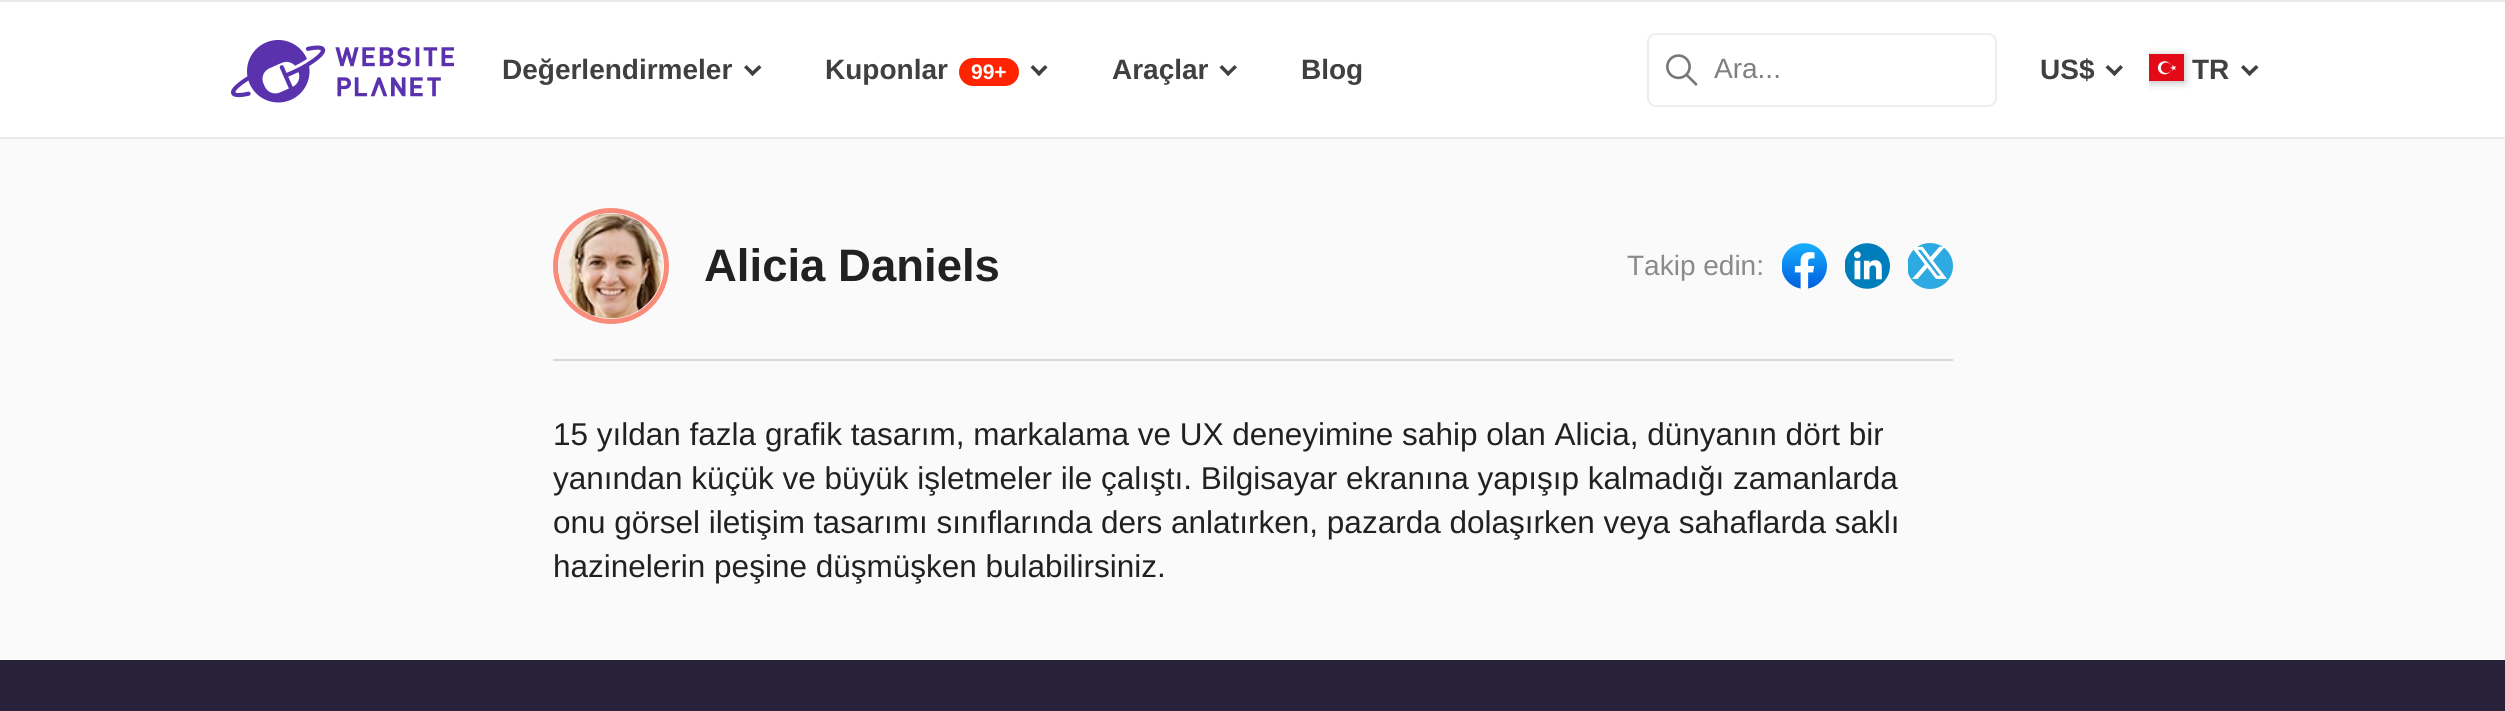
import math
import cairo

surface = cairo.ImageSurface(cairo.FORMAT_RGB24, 2505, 711)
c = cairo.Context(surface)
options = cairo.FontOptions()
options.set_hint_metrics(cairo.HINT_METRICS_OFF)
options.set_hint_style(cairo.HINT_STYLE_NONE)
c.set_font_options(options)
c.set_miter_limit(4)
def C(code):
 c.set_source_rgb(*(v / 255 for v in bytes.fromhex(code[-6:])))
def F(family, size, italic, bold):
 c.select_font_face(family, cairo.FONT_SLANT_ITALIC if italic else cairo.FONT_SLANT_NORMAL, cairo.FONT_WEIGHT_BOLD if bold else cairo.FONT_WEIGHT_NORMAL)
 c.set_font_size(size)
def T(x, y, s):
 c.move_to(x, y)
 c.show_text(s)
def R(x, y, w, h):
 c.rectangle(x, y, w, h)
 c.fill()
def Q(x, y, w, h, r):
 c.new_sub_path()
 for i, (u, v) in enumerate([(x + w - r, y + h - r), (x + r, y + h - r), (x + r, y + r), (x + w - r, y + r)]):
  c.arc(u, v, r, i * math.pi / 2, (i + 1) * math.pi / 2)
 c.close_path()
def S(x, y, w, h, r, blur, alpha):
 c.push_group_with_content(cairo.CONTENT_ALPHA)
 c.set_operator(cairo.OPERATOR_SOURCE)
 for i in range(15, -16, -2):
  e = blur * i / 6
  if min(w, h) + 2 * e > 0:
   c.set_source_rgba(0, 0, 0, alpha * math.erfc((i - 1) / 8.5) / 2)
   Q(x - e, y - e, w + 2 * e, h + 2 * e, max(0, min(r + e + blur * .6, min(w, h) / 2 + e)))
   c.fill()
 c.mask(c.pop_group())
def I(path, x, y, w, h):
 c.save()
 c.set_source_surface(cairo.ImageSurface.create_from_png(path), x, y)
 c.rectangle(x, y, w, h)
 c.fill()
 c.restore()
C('fafafa')
c.paint()
C('ffffff')
R(0,2,2505,135)
C('ece9e9')
R(0,0,2505,2)
R(0,137,2505,2)
I('1.png',231,40,223,63)
F('Liberation Sans',28,0,1)
C('404040')
T(502,79,'Değerlendirmeler')
c.new_path()
c.move_to(759,65)
c.line_to(761.5,67.5)
c.line_to(752.5,76)
c.line_to(750,73.5)
c.close_path()
c.fill()
c.new_path()
c.move_to(746.5,65)
c.line_to(755,73.5)
c.line_to(752.5,76)
c.line_to(744,67.5)
c.close_path()
c.fill()
T(825,79,'Kuponlar')
C('ff2300')
Q(959,58,60,28,14)
c.fill()
F('Liberation Sans',21,0,1)
C('ffffff')
T(971,79,'99+')
C('404040')
c.new_path()
c.move_to(1045,65)
c.line_to(1047.5,67.5)
c.line_to(1039,76)
c.line_to(1036.5,73.5)
c.close_path()
c.fill()
c.new_path()
c.move_to(1033,65)
c.line_to(1041.5,73.5)
c.line_to(1039,76)
c.line_to(1030.5,67.5)
c.close_path()
c.fill()
F('Liberation Sans',28,0,1)
T(1112,79,'Araçlar')
c.new_path()
c.move_to(1234.5,65)
c.line_to(1237,67.5)
c.line_to(1228,76)
c.line_to(1226,73.5)
c.close_path()
c.fill()
c.new_path()
c.move_to(1222,65)
c.line_to(1230.5,73.5)
c.line_to(1228,76)
c.line_to(1219.5,67.5)
c.close_path()
c.fill()
T(1301,79,'Blog')
Q(1648,34,348,72,8)
C('eeeeee')
c.stroke()
I('2.png',1666,54,32,32)
F('Liberation Sans',28,0,0)
C('808080')
T(1714,78,'Ara...')
F('Liberation Sans',28,0,1)
C('404040')
T(2040,79,'US$')
c.new_path()
c.move_to(2120.5,65)
c.line_to(2123,67.5)
c.line_to(2114.5,76)
c.line_to(2112,73.5)
c.close_path()
c.fill()
c.new_path()
c.move_to(2108,65)
c.line_to(2117,73.5)
c.line_to(2114.5,76)
c.line_to(2105.5,67.5)
c.close_path()
c.fill()
c.save()
c.rectangle(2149,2,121,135)
c.clip()
C('000000')
S(2149,56,35,26,0,4.5,.3)
c.restore()
I('3.png',2149,54,35,27)
T(2192,79,'TR')
c.new_path()
c.move_to(2256,65)
c.line_to(2258.5,67.5)
c.line_to(2249.5,76)
c.line_to(2247,73.5)
c.close_path()
c.fill()
c.new_path()
c.move_to(2243.5,65)
c.line_to(2252,73.5)
c.line_to(2249.5,76)
c.line_to(2241,67.5)
c.close_path()
c.fill()
C('d8d8d8')
R(553,359,1400,2)
c.arc(611,266,55.5,0,2 * math.pi)
C('f98b7a')
c.set_line_width(5)
c.stroke()
I('4.png',558,213,105,106)
F('Liberation Sans',45.5,0,1)
C('212121')
T(704,281,'Alicia Daniels')
F('Liberation Sans',28,0,0)
C('8a8a8a')
T(1627,275,'Takip edin:')
I('5.png',1782,243,45,46)
I('6.png',1845,243,45,46)
I('7.png',1908,243,45,46)
F('Liberation Sans',31.5,0,0)
C('212121')
T(553,445,'15 yıldan fazla grafik tasarım, markalama ve UX deneyimine sahip olan Alicia, dünyanın dört bir')
T(553,489,'yanından küçük ve büyük işletmeler ile çalıştı. Bilgisayar ekranına yapışıp kalmadığı zamanlarda')
T(553,533,'onu görsel iletişim tasarımı sınıflarında ders anlatırken, pazarda dolaşırken veya sahaflarda saklı')
T(553,577,'hazinelerin peşine düşmüşken bulabilirsiniz.')
C('27223a')
R(0,660,2505,51)
surface.write_to_png('o.png')
